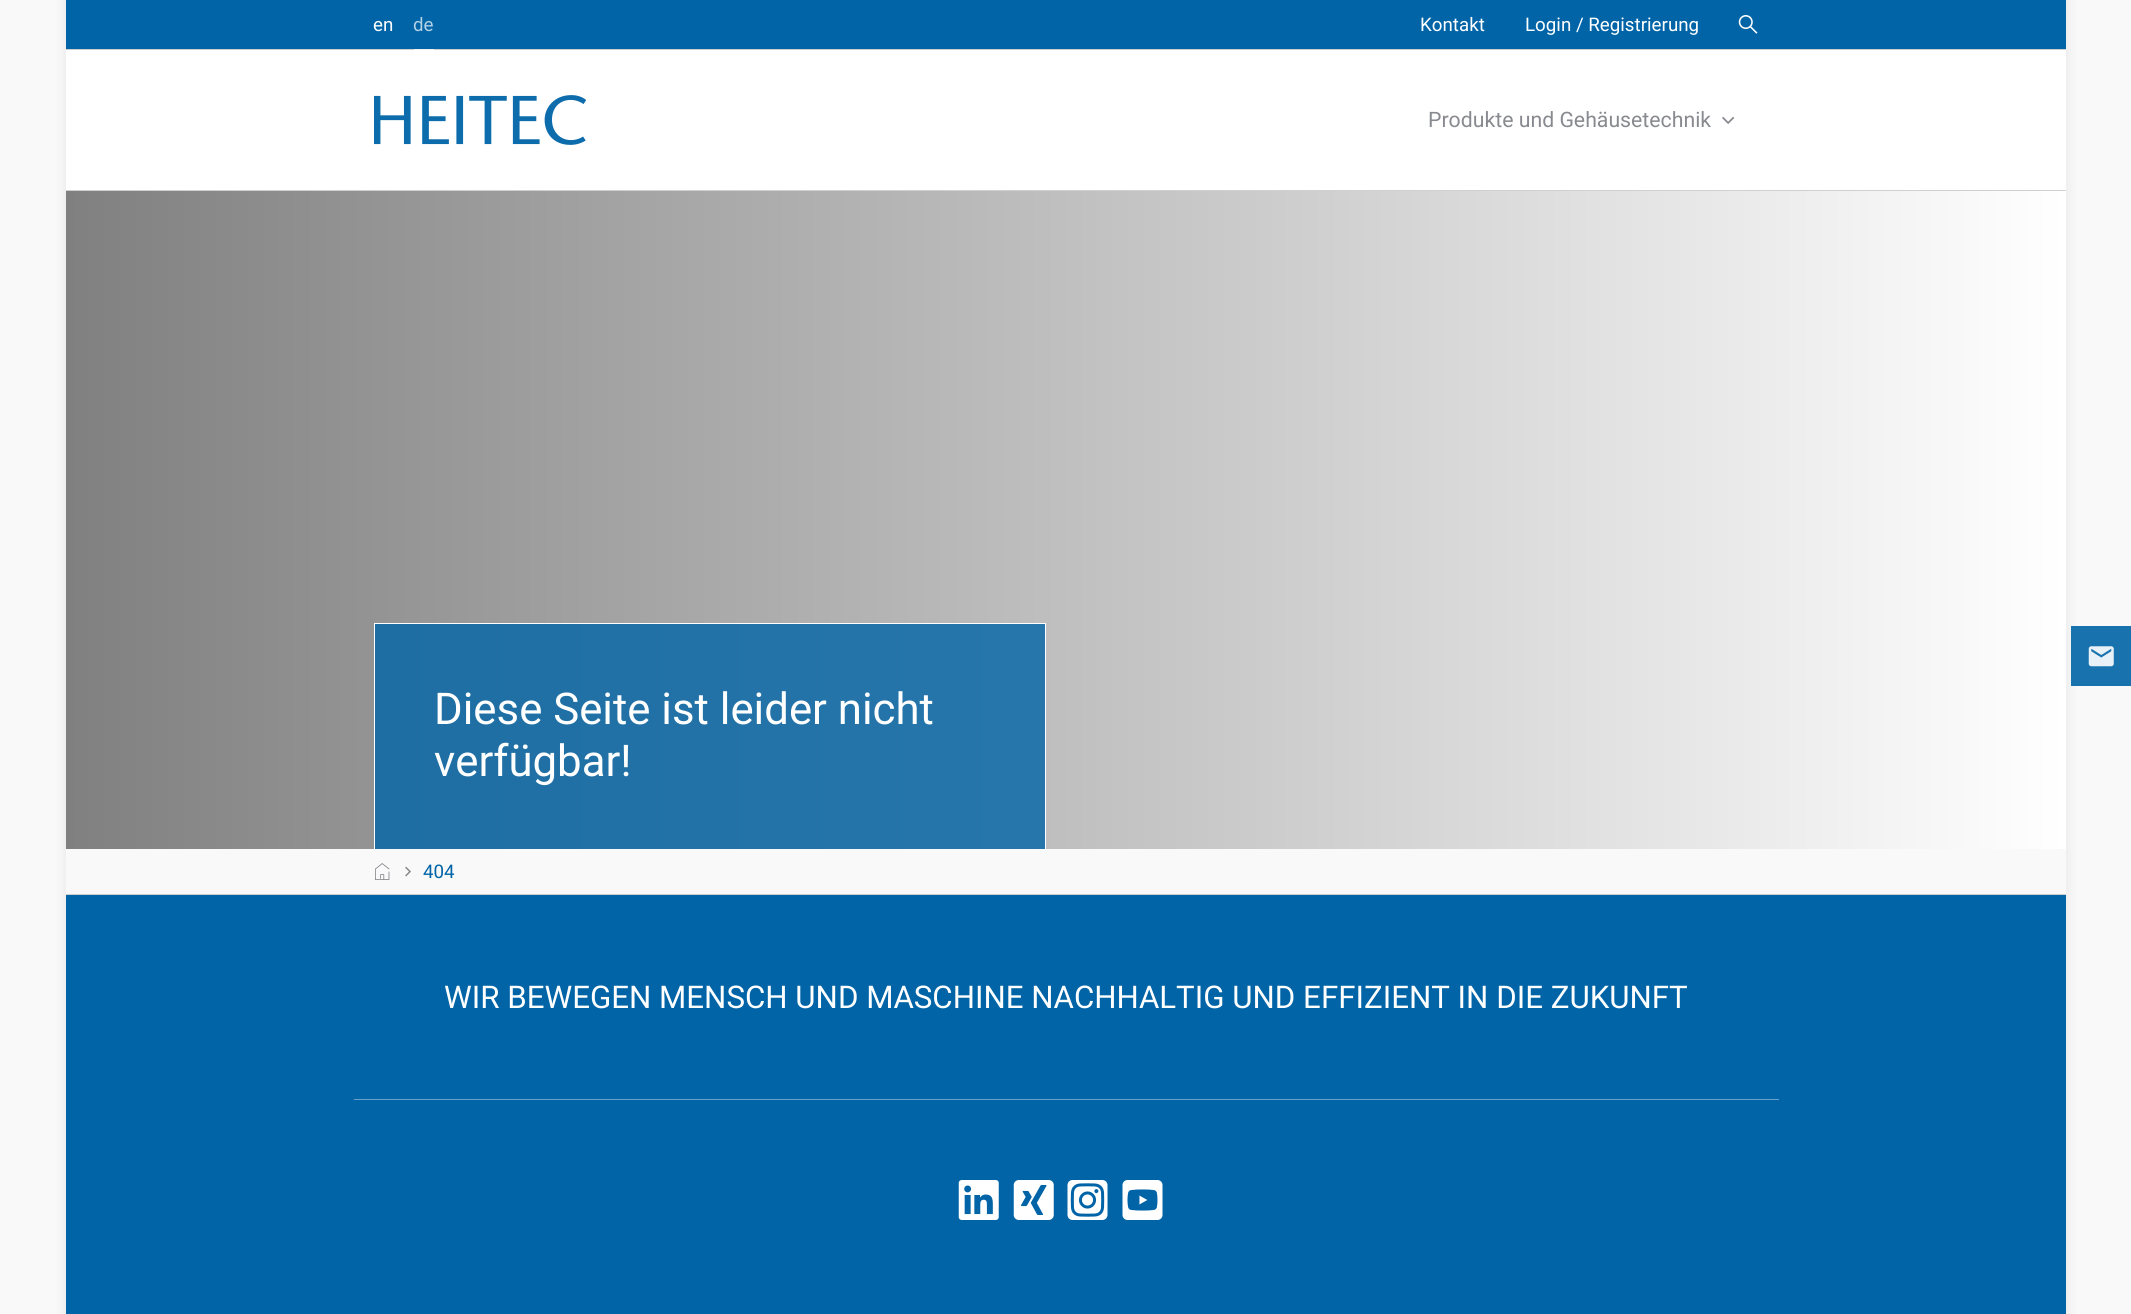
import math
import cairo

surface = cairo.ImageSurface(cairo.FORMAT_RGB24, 2131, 1314)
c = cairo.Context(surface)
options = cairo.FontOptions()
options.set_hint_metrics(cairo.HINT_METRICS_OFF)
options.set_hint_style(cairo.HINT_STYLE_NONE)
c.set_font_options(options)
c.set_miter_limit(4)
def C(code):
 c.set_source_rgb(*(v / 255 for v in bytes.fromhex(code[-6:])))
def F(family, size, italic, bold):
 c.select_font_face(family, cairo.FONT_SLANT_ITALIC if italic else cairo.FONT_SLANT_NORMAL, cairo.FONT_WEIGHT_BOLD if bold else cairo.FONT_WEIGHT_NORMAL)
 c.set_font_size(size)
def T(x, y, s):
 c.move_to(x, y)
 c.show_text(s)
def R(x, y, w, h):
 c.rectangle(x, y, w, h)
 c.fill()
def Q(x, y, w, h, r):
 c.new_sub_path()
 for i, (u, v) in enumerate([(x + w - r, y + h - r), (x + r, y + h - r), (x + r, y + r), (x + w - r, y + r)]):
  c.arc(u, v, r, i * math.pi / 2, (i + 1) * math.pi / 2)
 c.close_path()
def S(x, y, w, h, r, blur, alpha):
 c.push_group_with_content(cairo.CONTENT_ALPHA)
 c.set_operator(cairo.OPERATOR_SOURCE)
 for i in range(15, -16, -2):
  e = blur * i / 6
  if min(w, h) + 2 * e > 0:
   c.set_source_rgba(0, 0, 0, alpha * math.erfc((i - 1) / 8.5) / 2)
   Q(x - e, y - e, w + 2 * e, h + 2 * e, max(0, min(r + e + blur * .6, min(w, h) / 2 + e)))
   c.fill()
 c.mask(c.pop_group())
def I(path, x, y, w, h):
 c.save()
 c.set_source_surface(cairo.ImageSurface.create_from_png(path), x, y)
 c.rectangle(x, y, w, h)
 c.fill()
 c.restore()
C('f9f9f9')
c.paint()
C('000000')
S(63,-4,2007,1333,0,5,.05)
C('ffffff')
R(66,50,2000,140)
C('0064a7')
R(66,0,2000,49)
C('cdced0')
R(66,49,2000,1)
F('Roboto',18.75,0,0)
C('ffffff')
T(373,31,'en')
C('f0f0f1')
R(414,49,20,1)
C('b3d1e5')
T(413,31,'de')
C('ffffff')
T(1420,31,'Kontakt')
T(1525,31,'Login / Registrierung')
I('1.png',1738,15,20,19)
C('d0d0d2')
R(66,190,2000,1)
I('2.png',374,95,212,50)
F('Roboto',21.25,0,0)
C('888a90')
T(1428,127,'Produkte und Gehäusetechnik')
I('3.png',1722,116,13,8)
gradient = cairo.LinearGradient(66,520,2066,520)
gradient.add_color_stop_rgba(0,0.502,0.502,0.502,1)
gradient.add_color_stop_rgba(1,1,1,1,1)
c.set_source(gradient)
R(66,191,2000,658)
gradient = cairo.LinearGradient(66,520,2066,520)
gradient.add_color_stop_rgba(0,0.102,0.416,0.624,1)
gradient.add_color_stop_rgba(1,0.2,0.514,0.725,1)
c.set_source(gradient)
R(375,624,670,225)
C('ffffff')
R(374,623,672,1)
R(1045,623,1,226)
R(374,623,1,226)
F('Roboto',43.75,0,0)
T(434,724,'Diese Seite ist leider nicht')
T(434,776,'verfügbar!')
C('f9f9f9')
R(66,849,2000,45)
C('cdced0')
R(66,894,2000,1)
I('4.png',375,863,15,17)
I('5.png',405,866,6,11)
F('Roboto',18.75,0,0)
C('0064a7')
T(423,878,'404')
R(66,895,2000,419)
C('66a2ca')
R(354,1099,1425,1)
F('Roboto',31.25,0,0)
C('ffffff')
T(444,1008,'WIR BEWEGEN MENSCH UND MASCHINE NACHHALTIG UND EFFIZIENT IN DIE ZUKUNFT')
I('6.png',958,1180,41,40)
I('7.png',1013,1180,41,40)
I('8.png',1067,1180,41,40)
I('9.png',1122,1180,41,40)
c.set_source_rgba(0,0.392,0.655,0.9)
R(2071,626,60,60)
I('10.png',2088,646,26,21)
surface.write_to_png('o.png')
